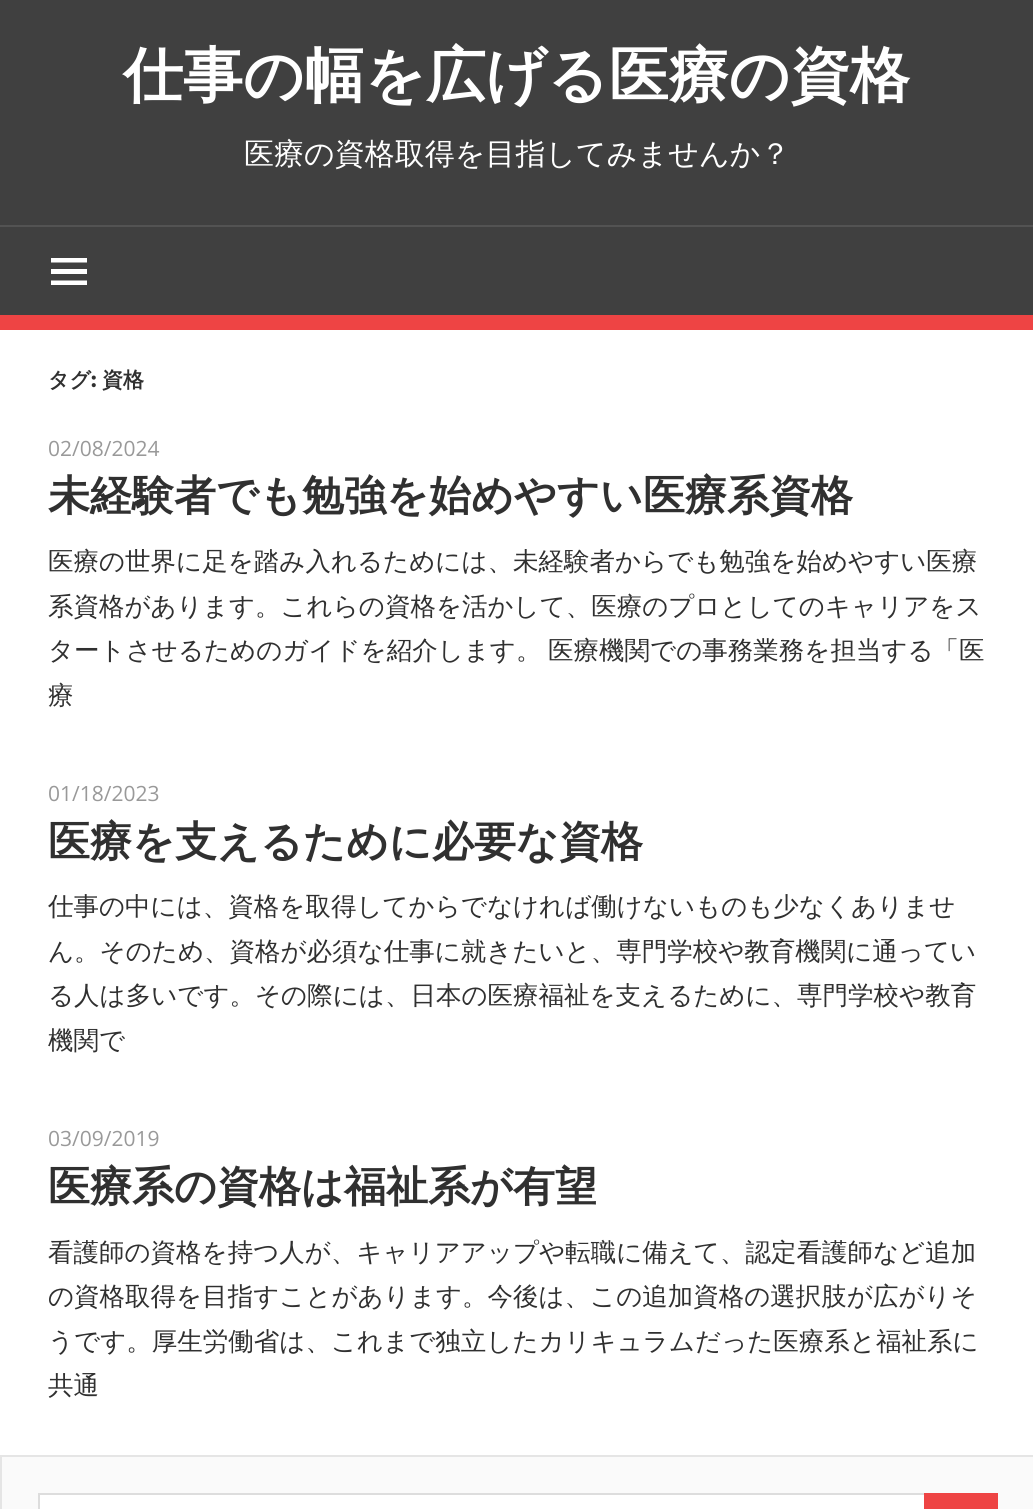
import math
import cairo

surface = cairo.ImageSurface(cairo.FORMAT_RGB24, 1033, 1509)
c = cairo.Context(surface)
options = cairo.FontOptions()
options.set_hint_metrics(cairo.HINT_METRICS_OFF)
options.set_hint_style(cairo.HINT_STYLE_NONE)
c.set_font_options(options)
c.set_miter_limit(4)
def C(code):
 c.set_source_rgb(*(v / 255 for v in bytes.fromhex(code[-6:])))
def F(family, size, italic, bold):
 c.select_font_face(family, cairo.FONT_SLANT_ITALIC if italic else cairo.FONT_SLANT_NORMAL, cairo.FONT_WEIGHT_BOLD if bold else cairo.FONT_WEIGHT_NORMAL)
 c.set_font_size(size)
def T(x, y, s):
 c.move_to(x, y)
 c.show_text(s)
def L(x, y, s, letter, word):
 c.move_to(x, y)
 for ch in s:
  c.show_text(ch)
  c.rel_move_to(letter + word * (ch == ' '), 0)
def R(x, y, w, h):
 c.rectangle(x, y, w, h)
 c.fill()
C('404040')
c.paint()
C('ee4444')
R(0,315,1033,15)
F('WenQuanYi Zen Hei',60,0,1)
C('ffffff')
T(123,96,'仕事の幅を広げる医療の資格')
F('WenQuanYi Zen Hei Medium',30,0,0)
T(244,164,'医療の資格取得を目指してみませんか？')
C('535353')
R(0,225,1033,2)
C('ffffff')
c.new_path()
c.move_to(51,285)
c.line_to(51,280.5)
c.line_to(87,280.5)
c.line_to(87,285)
c.close_path()
c.move_to(51,258)
c.line_to(87,258)
c.line_to(87,262.5)
c.line_to(51,262.5)
c.close_path()
c.move_to(51,274)
c.line_to(51,269)
c.line_to(87,269)
c.line_to(87,274)
c.close_path()
c.fill()
R(0,330,1033,1125)
F('WenQuanYi Zen Hei',21,0,1)
C('303030')
T(48,387,'タグ')
F('Montserrat',21,0,1)
T(91,387,':')
F('WenQuanYi Zen Hei',21,0,1)
T(102,387,'資格')
F('Open Sans',21,0,0)
C('999999')
T(48,456,'02/08/2024')
F('WenQuanYi Zen Hei',42,0,1)
C('303030')
T(48,510,'未経験者でも勉強を始めやすい医療系資格')
F('WenQuanYi Zen Hei Medium',25.5,0,0)
T(48,570,'医療の世界に足を踏み入れるためには、未経験者からでも勉強を始めやすい医療')
T(48,615,'系資格があります。これらの資格を活かして、医療のプロとしてのキャリアをス')
L(48,659,'タートさせるためのガイドを紹介します。 医療機関での事務業務を担当する「医',0,-1)
T(48,704,'療')
F('Open Sans',21,0,0)
C('999999')
T(48,801,'01/18/2023')
F('WenQuanYi Zen Hei',42,0,1)
C('303030')
T(48,856,'医療を支えるために必要な資格')
F('WenQuanYi Zen Hei Medium',25.5,0,0)
T(48,915,'仕事の中には、資格を取得してからでなければ働けないものも少なくありませ')
T(48,960,'ん。そのため、資格が必須な仕事に就きたいと、専門学校や教育機関に通ってい')
T(48,1004,'る人は多いです。その際には、日本の医療福祉を支えるために、専門学校や教育')
T(48,1049,'機関で')
F('Open Sans',21,0,0)
C('999999')
T(48,1146,'03/09/2019')
F('WenQuanYi Zen Hei',42,0,1)
C('303030')
T(48,1201,'医療系の資格は福祉系が有望')
F('WenQuanYi Zen Hei Medium',25.5,0,0)
T(48,1261,'看護師の資格を持つ人が、キャリアアップや転職に備えて、認定看護師など追加')
T(48,1305,'の資格取得を目指すことがあります。今後は、この追加資格の選択肢が広がりそ')
T(48,1350,'うです。厚生労働省は、これまで独立したカリキュラムだった医療系と福祉系に')
T(48,1394,'共通')
C('fafafa')
R(2,1457,1031,52)
C('e5e5e5')
R(0,1455,1033,2)
R(0,1455,2,54)
C('ffffff')
R(40,1495,884,14)
c.rectangle(39,1494,958,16)
C('dddddd')
c.stroke()
C('ee4444')
R(924,1493,74,16)
surface.write_to_png('o.png')
